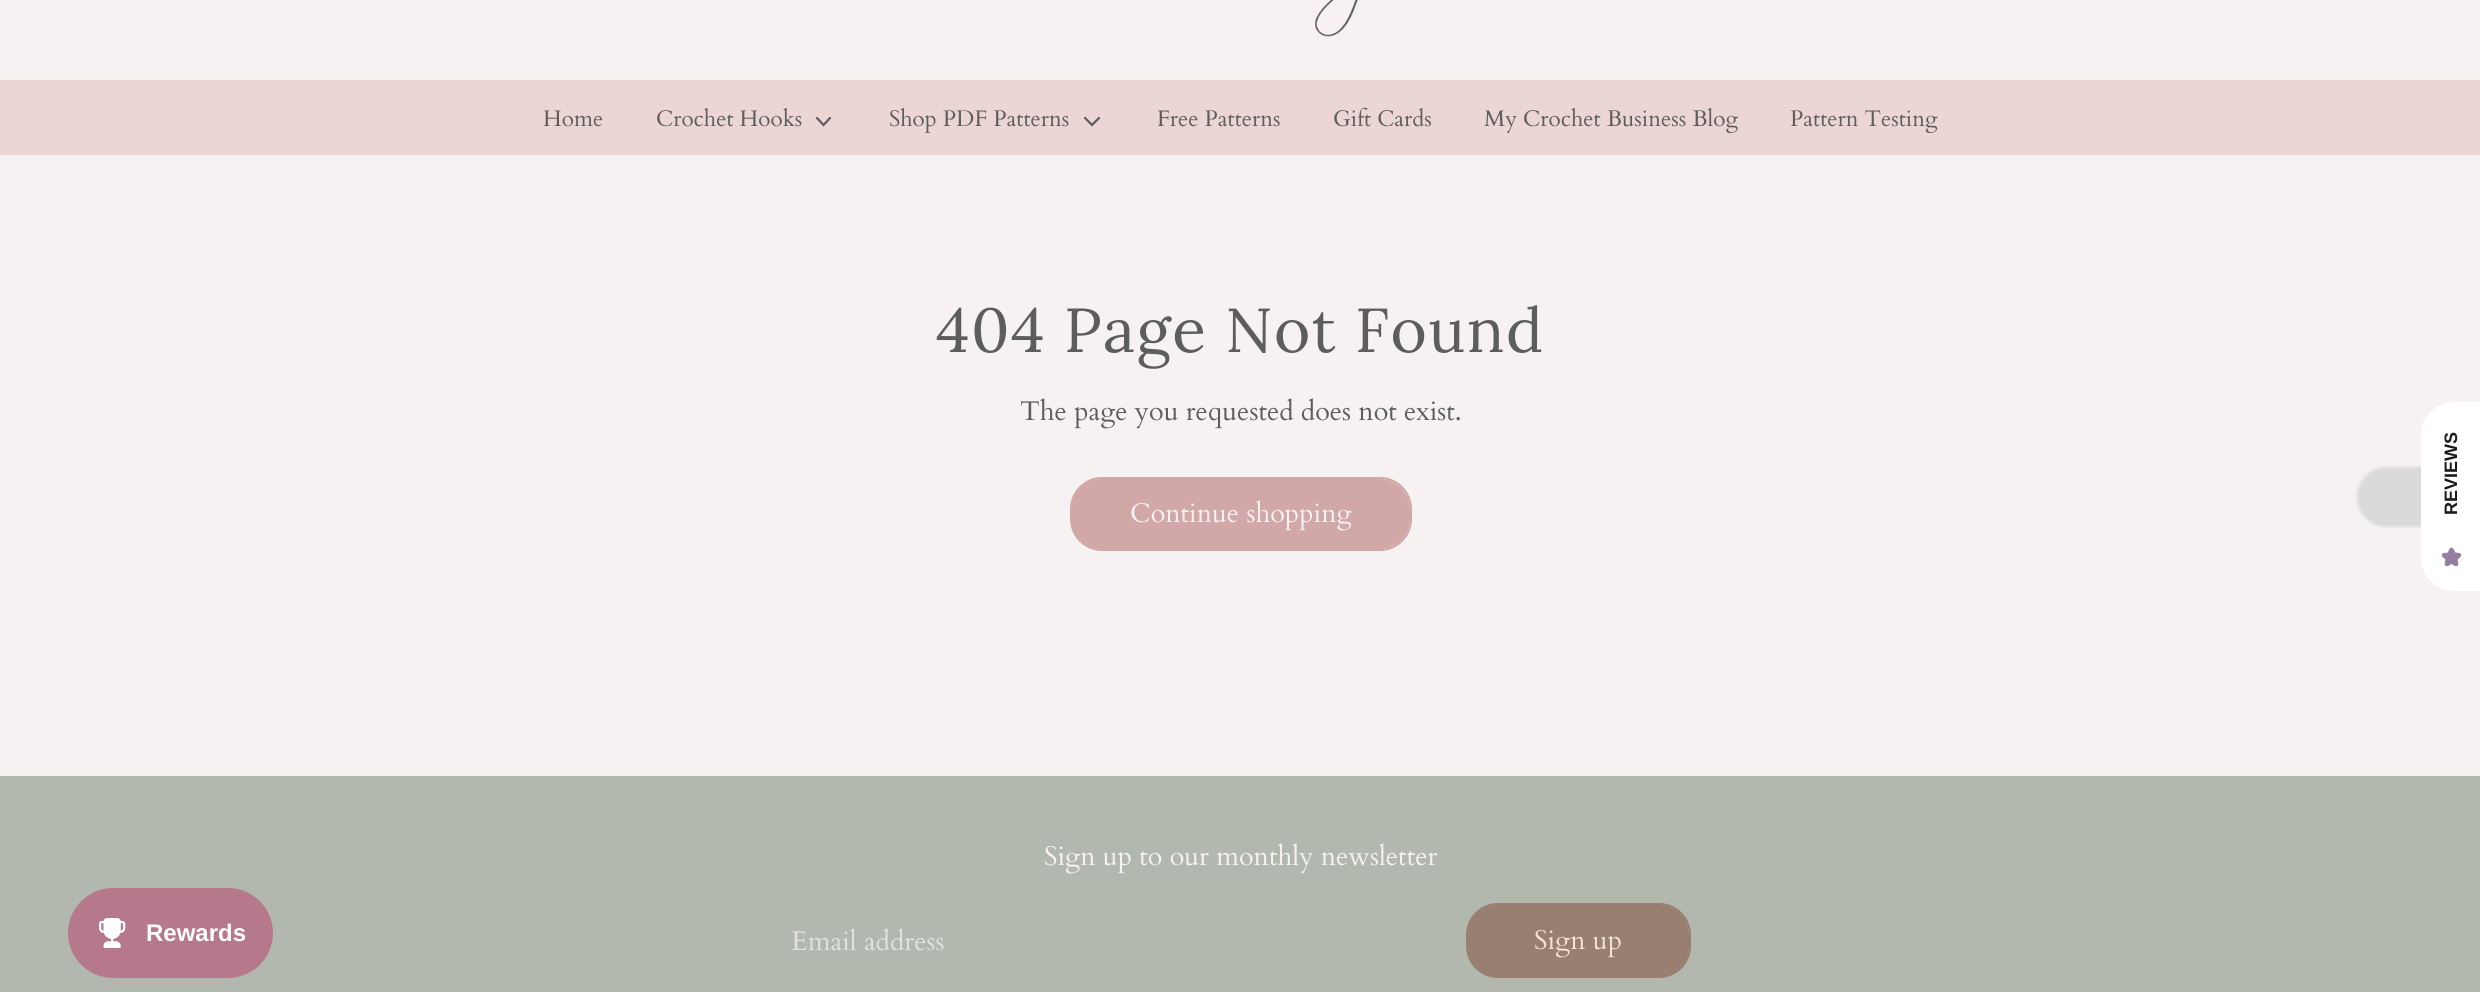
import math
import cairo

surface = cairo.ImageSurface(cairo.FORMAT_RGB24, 2480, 992)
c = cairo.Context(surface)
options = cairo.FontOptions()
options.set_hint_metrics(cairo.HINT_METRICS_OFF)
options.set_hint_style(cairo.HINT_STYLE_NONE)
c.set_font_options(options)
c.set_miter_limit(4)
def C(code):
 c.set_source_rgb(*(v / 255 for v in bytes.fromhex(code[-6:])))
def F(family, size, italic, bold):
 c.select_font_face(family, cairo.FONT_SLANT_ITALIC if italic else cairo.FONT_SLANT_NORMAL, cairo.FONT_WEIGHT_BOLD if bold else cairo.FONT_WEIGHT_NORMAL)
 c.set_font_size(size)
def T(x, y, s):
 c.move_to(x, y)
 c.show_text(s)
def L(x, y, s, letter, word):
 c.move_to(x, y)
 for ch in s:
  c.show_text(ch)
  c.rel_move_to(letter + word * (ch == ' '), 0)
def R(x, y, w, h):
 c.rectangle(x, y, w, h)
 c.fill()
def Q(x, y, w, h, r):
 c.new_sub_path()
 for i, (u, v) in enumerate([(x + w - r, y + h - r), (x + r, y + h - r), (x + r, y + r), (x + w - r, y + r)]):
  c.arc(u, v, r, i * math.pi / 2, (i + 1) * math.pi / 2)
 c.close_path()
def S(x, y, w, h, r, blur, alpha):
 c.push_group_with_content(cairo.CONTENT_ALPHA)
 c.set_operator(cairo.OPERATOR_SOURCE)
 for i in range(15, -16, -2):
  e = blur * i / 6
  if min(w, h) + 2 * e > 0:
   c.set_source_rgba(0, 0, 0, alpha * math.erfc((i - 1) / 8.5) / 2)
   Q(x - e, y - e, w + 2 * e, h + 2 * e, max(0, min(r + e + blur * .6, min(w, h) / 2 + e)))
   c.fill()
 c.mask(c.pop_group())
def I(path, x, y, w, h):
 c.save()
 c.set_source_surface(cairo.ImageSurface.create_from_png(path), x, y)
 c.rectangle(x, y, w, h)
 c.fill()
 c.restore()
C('f6f2f1')
c.paint()
I('1.png',1314,0,44,37)
C('ebd6d3')
R(0,80,2480,75)
F('Cardo',22.5,0,0)
C('5d5d5d')
T(543,126,'Home')
T(656,126,'Crochet Hooks')
c.new_path()
c.move_to(817,118)
c.line_to(823.5,125)
c.line_to(830,118)
c.set_line_width(2.2)
c.set_line_cap(cairo.LINE_CAP_ROUND)
c.stroke()
T(889,126,'Shop PDF Patterns')
c.new_path()
c.move_to(1085,118)
c.line_to(1092,125)
c.line_to(1099,118)
c.stroke()
T(1157,126,'Free Patterns')
T(1333,126,'Gift Cards')
T(1484,126,'My Crochet Business Blog')
T(1790,126,'Pattern Testing')
F('Lora',62,0,0)
L(936,352,'404 Page Not Found',1.5,0)
F('Cardo',27,0,0)
T(1020,420,'The page you requested does not exist.')
Q(1071,478,340,72,31)
C('d1a7a7')
c.set_line_width(2)
c.set_line_cap(cairo.LINE_CAP_BUTT)
c.stroke()
Q(1071,479,339,70,30)
c.fill()
C('f6f2f1')
T(1130,522,'Continue shopping')
C('dadada')
S(2357,467,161,60,33,1.5,1)
C('ffffff')
c.new_path()
c.move_to(2421,558)
c.line_to(2421,435)
c.curve_to(2421,417,2436,402,2454,402)
c.line_to(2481,402)
c.line_to(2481,591)
c.line_to(2454,591)
c.curve_to(2436,591,2421,576,2421,558)
c.close_path()
c.fill()
F('Liberation Sans',18,0,1)
C('1a1a1a')
c.save()
c.translate(2457,515)
c.rotate(-90 * math.pi / 180)
T(0,0,'REVIEWS')
c.restore()
I('2.png',2441,547,21,20)
C('b2b8ae')
R(0,776,2480,216)
C('b6798b')
Q(68,888,205,90,45)
c.fill()
I('3.png',99,918,27,30)
F('Liberation Sans',24,0,1)
C('ffffff')
T(146,941,'Rewards')
F('Cardo',27,0,0)
C('f6f2f1')
T(1044,865,'Sign up to our monthly newsletter')
C('e2e1dd')
T(791,950,'Email address')
Q(1467,904,223,73,31)
C('997f70')
c.stroke()
Q(1467,905,222,72,30)
c.fill()
C('f5e1d0')
T(1534,949,'Sign up')
surface.write_to_png('o.png')
